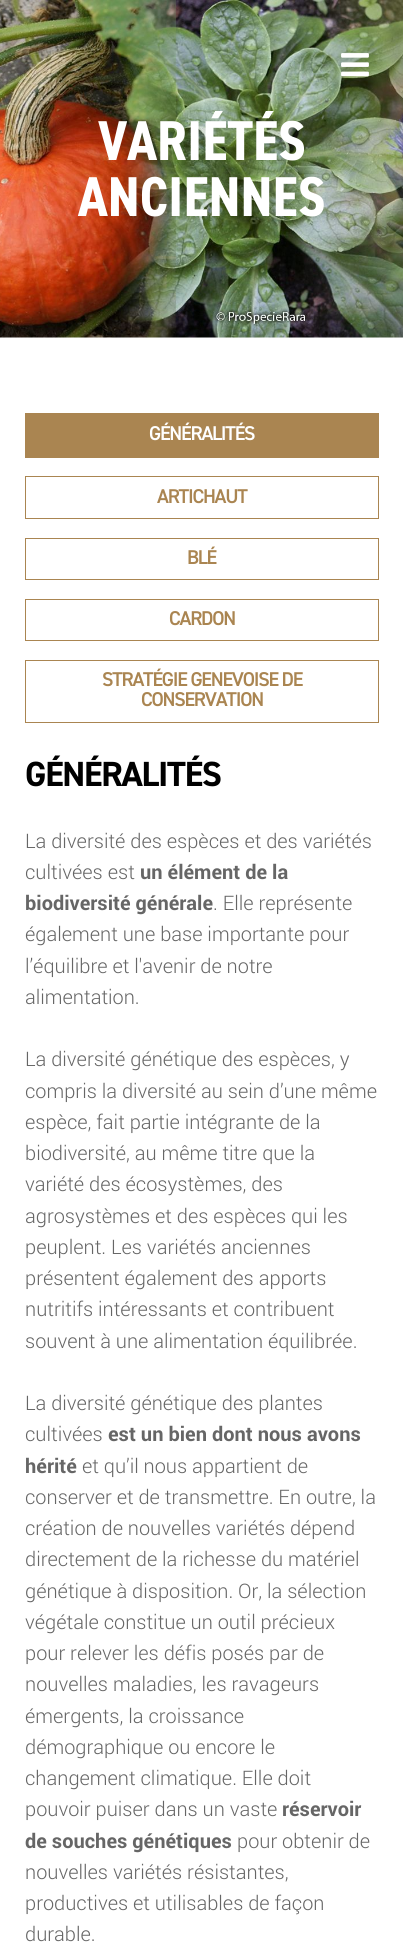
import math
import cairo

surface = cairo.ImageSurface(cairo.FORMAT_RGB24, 403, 1948)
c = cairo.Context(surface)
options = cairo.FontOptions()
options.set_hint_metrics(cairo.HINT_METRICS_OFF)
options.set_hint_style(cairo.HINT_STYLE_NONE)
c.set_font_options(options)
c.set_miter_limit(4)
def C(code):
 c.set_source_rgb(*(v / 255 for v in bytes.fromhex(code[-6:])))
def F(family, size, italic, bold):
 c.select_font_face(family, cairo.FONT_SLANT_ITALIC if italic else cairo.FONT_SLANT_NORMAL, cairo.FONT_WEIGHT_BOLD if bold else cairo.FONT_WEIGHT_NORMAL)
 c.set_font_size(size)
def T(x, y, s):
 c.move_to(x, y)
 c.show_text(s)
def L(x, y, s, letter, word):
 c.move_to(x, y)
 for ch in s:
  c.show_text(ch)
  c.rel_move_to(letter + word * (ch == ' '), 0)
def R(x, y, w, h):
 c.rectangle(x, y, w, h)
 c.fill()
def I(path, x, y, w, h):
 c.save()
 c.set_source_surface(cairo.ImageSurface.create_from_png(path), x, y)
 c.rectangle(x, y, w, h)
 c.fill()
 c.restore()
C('ffffff')
c.paint()
I('2.png',0,0,403,338)
I('1.png',341,53,28,24)
F('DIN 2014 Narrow',56.25,0,1)
C('ffffff')
T(98,160,'VARIÉTÉS')
T(78,216,'ANCIENNES')
C('aa8551')
R(25,413,354,45)
F('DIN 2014 SemiBold',20,0,0)
C('ffffff')
L(149,440,'GÉNÉRALITÉS',-1.25,0)
c.rectangle(25.5,476.5,353,42)
C('aa8551')
c.set_line_width(1)
c.stroke()
L(157,503,'ARTICHAUT',-1.25,0)
c.rectangle(25.5,538.5,353,41)
c.stroke()
L(187,564,'BLÉ',-1.25,0)
c.rectangle(25.5,599.5,353,41)
c.stroke()
L(169,625,'CARDON',-1.25,0)
c.rectangle(25.5,660.5,353,62)
c.stroke()
L(102,686,'STRATÉGIE GENEVOISE DE',-1.25,0)
L(141,706,'CONSERVATION',-1.25,0)
F('DIN 2014',35,0,1)
C('000000')
L(25,786,'GÉNÉRALITÉS',-1.25,0)
F('Roboto Light',20,0,0)
C('666666')
T(25,848,'La diversité des espèces et des variétés')
T(25,879,'cultivées est')
F('Roboto',20,0,1)
T(140,879,'un élément de la')
T(25,910,'biodiversité générale')
F('Roboto Light',20,0,0)
T(213,910,'. Elle représente')
T(25,941,'également une base importante pour')
T(25,973,'l’équilibre et l\'avenir de notre')
T(25,1004,'alimentation.')
T(25,1066,'La diversité génétique des espèces, y')
T(25,1098,'compris la diversité au sein d’une même')
T(25,1129,'espèce, fait partie intégrante de la')
T(25,1160,'biodiversité, au même titre que la')
T(25,1191,'variété des écosystèmes, des')
T(25,1223,'agrosystèmes et des espèces qui les')
T(25,1254,'peuplent. Les variétés anciennes')
T(25,1285,'présentent également des apports')
T(25,1316,'nutritifs intéressants et contribuent')
T(25,1348,'souvent à une alimentation équilibrée.')
T(25,1410,'La diversité génétique des plantes')
T(25,1441,'cultivées')
F('Roboto',20,0,1)
T(108,1441,'est un bien dont nous avons')
T(25,1473,'hérité')
F('Roboto Light',20,0,0)
T(82,1473,'et qu’il nous appartient de')
T(25,1504,'conserver et de transmettre. En outre, la')
T(25,1535,'création de nouvelles variétés dépend')
T(25,1566,'directement de la richesse du matériel')
T(25,1598,'génétique à disposition. Or, la sélection')
T(25,1629,'végétale constitue un outil précieux')
T(25,1660,'pour relever les défis posés par de')
T(25,1691,'nouvelles maladies, les ravageurs')
T(25,1723,'émergents, la croissance')
T(25,1754,'démographique ou encore le')
T(25,1785,'changement climatique. Elle doit')
T(25,1816,'pouvoir puiser dans un vaste')
F('Roboto',20,0,1)
T(282,1816,'réservoir')
T(25,1848,'de souches génétiques')
F('Roboto Light',20,0,0)
T(237,1848,'pour obtenir de')
T(25,1879,'nouvelles variétés résistantes,')
T(25,1910,'productives et utilisables de façon')
T(25,1941,'durable.')
surface.write_to_png('o.png')
